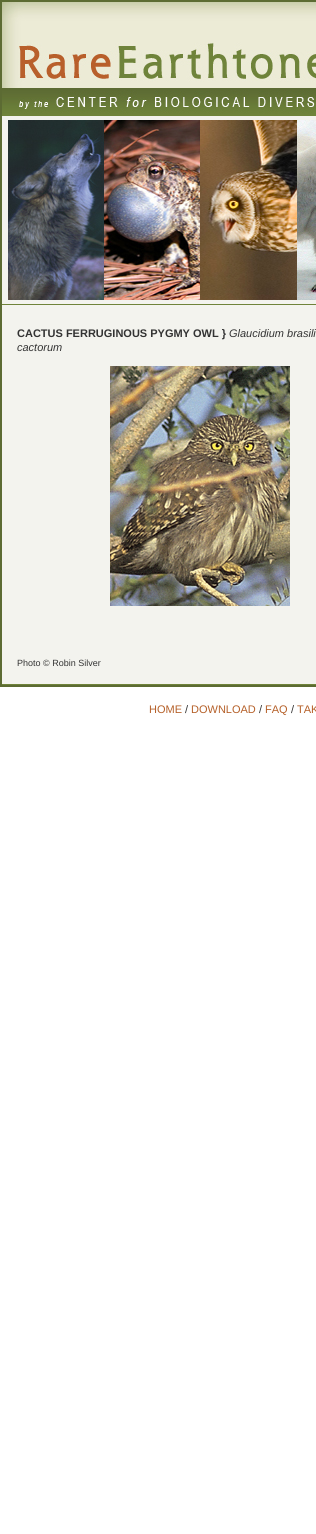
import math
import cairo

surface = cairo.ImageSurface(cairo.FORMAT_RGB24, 316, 1534)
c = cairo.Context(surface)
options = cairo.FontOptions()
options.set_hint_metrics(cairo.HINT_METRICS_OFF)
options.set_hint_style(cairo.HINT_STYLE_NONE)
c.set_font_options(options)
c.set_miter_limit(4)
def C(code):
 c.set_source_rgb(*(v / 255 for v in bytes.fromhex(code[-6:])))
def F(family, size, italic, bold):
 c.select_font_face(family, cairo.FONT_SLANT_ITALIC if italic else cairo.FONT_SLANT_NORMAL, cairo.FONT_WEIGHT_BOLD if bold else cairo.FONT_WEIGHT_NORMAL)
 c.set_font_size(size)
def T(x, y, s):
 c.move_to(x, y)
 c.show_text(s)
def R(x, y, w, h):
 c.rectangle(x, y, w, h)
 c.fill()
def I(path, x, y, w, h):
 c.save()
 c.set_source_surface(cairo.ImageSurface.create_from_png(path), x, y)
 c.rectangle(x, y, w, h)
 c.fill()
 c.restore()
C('ffffff')
c.paint()
c.rectangle(.5,.5,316,686)
C('5c6b33')
c.set_line_width(1)
c.stroke()
c.rectangle(1.5,1.5,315,684)
c.stroke()
I('1.png',2,2,314,113)
C('f3f3ee')
R(2,116,314,568)
C('6f833a')
R(2,115,314,1)
I('2.png',8,120,308,180)
R(2,684,314,1)
R(2,304,314,1)
F('Liberation Sans',11,0,1)
C('333333')
T(17,337,'CACTUS FERRUGINOUS PYGMY OWL }')
F('Liberation Sans',11,1,0)
T(229,337,'Glaucidium brasili')
T(17,351,'cactorum')
I('3.png',110,366,180,240)
F('Liberation Sans',9,0,0)
T(17,666,'Photo © Robin Silver')
F('Liberation Sans',11,0,0)
C('b56029')
T(149,713,'HOME')
C('333333')
T(185,713,'/')
C('b56029')
T(191,713,'DOWNLOAD')
C('333333')
T(259,713,'/')
C('b56029')
T(265,713,'FAQ')
C('333333')
T(291,713,'/')
C('b56029')
T(297,713,'TAK')
surface.write_to_png('o.png')
